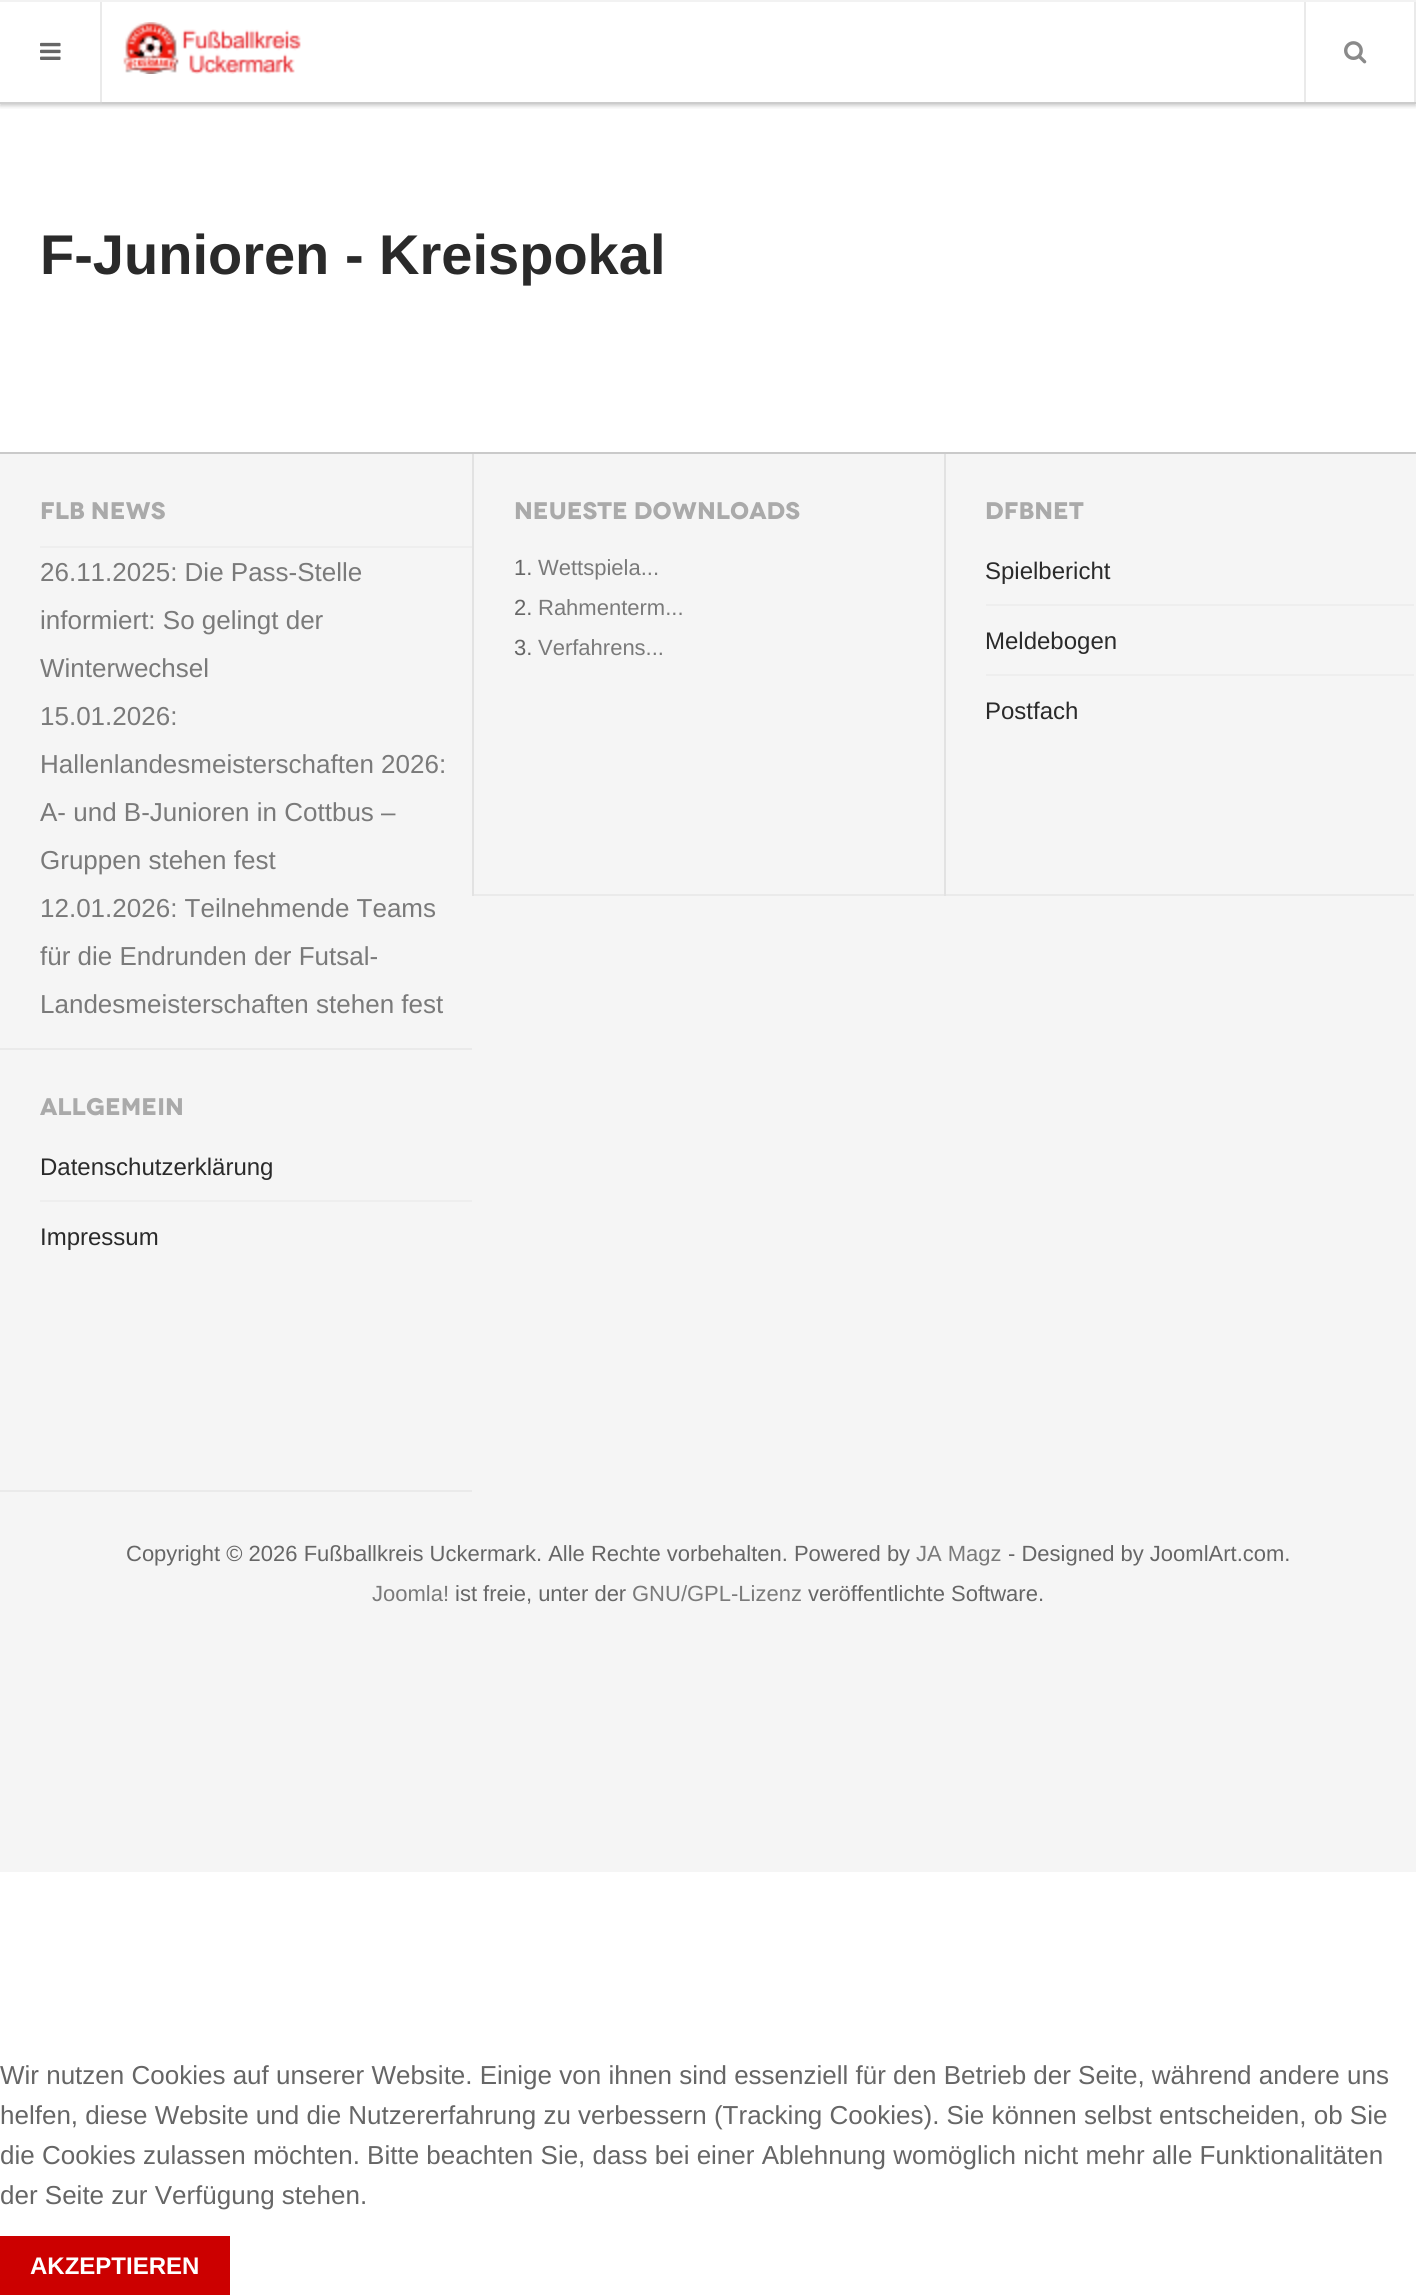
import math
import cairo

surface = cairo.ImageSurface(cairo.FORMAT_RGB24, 1416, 2295)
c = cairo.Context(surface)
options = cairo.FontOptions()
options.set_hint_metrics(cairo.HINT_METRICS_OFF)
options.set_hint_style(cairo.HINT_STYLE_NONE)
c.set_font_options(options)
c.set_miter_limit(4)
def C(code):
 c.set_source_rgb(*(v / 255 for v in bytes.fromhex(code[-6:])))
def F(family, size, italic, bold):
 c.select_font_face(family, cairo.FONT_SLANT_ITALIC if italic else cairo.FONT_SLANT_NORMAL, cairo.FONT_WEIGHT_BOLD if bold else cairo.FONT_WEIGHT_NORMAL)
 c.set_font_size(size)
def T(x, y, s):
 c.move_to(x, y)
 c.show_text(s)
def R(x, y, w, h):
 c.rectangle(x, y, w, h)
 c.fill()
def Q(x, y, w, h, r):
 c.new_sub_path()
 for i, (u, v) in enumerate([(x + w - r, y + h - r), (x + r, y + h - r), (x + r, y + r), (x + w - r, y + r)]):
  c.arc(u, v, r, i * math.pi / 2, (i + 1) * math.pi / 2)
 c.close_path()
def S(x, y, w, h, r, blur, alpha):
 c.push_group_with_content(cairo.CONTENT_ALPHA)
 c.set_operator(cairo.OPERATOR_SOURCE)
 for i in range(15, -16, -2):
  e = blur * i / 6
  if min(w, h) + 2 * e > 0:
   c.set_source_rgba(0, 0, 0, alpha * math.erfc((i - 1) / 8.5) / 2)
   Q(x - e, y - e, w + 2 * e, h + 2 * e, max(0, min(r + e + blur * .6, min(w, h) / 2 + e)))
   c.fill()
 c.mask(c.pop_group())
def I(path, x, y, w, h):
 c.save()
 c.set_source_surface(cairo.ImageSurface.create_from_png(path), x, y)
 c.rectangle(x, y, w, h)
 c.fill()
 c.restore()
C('ffffff')
c.paint()
c.save()
c.rectangle(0,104,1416,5)
c.clip()
C('000000')
S(0,2,1416,104,0,2,.2)
c.restore()
C('f2f2f2')
R(0,0,1416,2)
C('cccccc')
R(102,102,1314,2)
C('d0d0d0')
R(0,102,102,2)
C('eaeaea')
R(100,2,2,100)
I('1.png',40,42,21,18)
I('2.png',123,22,178,52)
R(1304,2,2,100)
R(1414,2,2,100)
I('3.png',1344,41,23,23)
F('Liberation Sans',56,0,1)
C('2a2a2a')
T(40,274,'F-Junioren - Kreispokal')
C('f5f5f5')
R(0,454,1416,1418)
C('cacaca')
R(0,452,1416,2)
C('eaeaea')
R(0,1048,472,2)
F('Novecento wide',24,0,1)
C('aaaaaa')
T(40,519,'FLB NEWS')
C('eeeeee')
R(40,546,432,2)
F('Liberation Sans',26,0,0)
C('7a7a7a')
T(40,581,'26.11.2025: Die Pass-Stelle')
T(40,629,'informiert: So gelingt der')
T(40,677,'Winterwechsel')
T(40,725,'15.01.2026:')
T(40,773,'Hallenlandesmeisterschaften 2026:')
T(40,821,'A- und B-Junioren in Cottbus –')
T(40,869,'Gruppen stehen fest')
T(40,917,'12.01.2026: Teilnehmende Teams')
T(40,965,'für die Endrunden der Futsal-')
T(40,1013,'Landesmeisterschaften stehen fest')
C('eaeaea')
R(472,894,942,2)
C('e2e2e2')
R(472,454,2,442)
F('Novecento wide',24,0,1)
C('aaaaaa')
T(514,519,'NEUESTE DOWNLOADS')
F('Liberation Sans',22,0,0)
C('666666')
T(514,575,'1.')
C('7a7a7a')
T(538,575,'Wettspiela...')
C('666666')
T(514,615,'2.')
C('7a7a7a')
T(538,615,'Rahmenterm...')
C('666666')
T(514,655,'3.')
C('7a7a7a')
T(538,655,'Verfahrens...')
C('e2e2e2')
R(944,454,2,442)
F('Novecento wide',24,0,1)
C('aaaaaa')
T(985,519,'DFBNET')
F('Liberation Sans',24,0,0)
C('2a2a2a')
T(985,579,'Spielbericht')
C('eeeeee')
R(986,604,428,2)
C('2a2a2a')
T(985,649,'Meldebogen')
C('eeeeee')
R(986,674,428,2)
C('2a2a2a')
T(985,719,'Postfach')
C('eaeaea')
R(0,1490,472,2)
F('Novecento wide',24,0,1)
C('aaaaaa')
T(40,1115,'ALLGEMEIN')
F('Liberation Sans',24,0,0)
C('2a2a2a')
T(40,1175,'Datenschutzerklärung')
C('eeeeee')
R(40,1200,432,2)
C('2a2a2a')
T(40,1245,'Impressum')
F('Liberation Sans',22,0,0)
C('666666')
T(126,1561,'Copyright © 2026 Fußballkreis Uckermark. Alle Rechte vorbehalten. Powered by')
C('7a7a7a')
T(916,1561,'JA Magz')
C('666666')
T(1008,1561,'- Designed by JoomlArt.com.')
C('7a7a7a')
T(372,1601,'Joomla!')
C('666666')
T(455,1601,'ist freie, unter der')
C('7a7a7a')
T(632,1601,'GNU/GPL-Lizenz')
C('666666')
T(808,1601,'veröffentlichte Software.')
F('Liberation Sans',26,0,0)
T(0,2084,'Wir nutzen Cookies auf unserer Website. Einige von ihnen sind essenziell für den Betrieb der Seite, während andere uns')
T(0,2124,'helfen, diese Website und die Nutzererfahrung zu verbessern (Tracking Cookies). Sie können selbst entscheiden, ob Sie')
T(0,2164,'die Cookies zulassen möchten. Bitte beachten Sie, dass bei einer Ablehnung womöglich nicht mehr alle Funktionalitäten')
T(0,2204,'der Seite zur Verfügung stehen.')
C('cc0000')
R(0,2236,230,59)
F('Liberation Sans',24,0,1)
C('ffffff')
T(30,2274,'AKZEPTIEREN')
surface.write_to_png('o.png')
